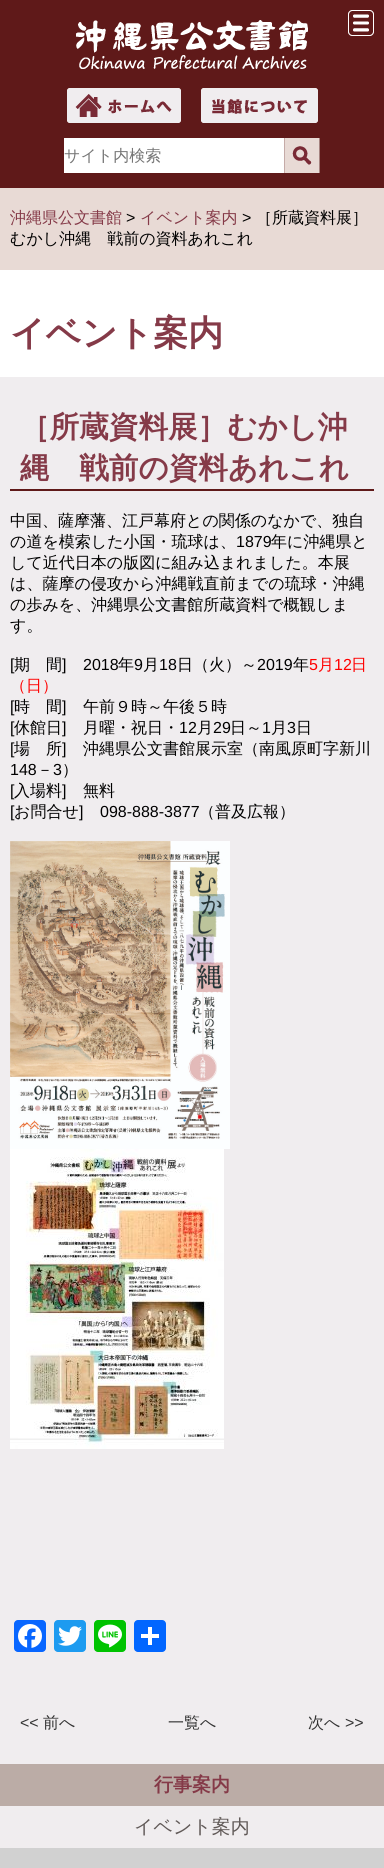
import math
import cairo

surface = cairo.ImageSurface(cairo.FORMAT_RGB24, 384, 1868)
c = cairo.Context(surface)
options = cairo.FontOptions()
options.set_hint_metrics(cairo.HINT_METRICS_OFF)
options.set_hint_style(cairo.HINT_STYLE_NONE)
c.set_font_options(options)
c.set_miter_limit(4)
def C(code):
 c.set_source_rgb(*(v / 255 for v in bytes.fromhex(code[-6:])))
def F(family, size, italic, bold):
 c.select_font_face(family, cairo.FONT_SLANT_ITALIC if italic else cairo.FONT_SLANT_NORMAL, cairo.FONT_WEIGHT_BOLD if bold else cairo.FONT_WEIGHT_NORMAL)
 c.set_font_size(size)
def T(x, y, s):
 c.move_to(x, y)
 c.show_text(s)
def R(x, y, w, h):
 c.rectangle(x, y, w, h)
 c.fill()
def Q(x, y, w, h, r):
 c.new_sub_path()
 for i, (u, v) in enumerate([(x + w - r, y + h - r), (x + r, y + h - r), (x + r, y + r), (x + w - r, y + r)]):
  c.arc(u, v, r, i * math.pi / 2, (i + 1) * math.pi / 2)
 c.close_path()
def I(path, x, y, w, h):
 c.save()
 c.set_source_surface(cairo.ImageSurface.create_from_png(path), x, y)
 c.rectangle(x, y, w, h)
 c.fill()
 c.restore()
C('ffffff')
c.paint()
C('5f1919')
R(0,0,384,188)
I('1.png',348,10,26,26)
I('2.png',76,20,232,49)
I('3.png',67,88,114,35)
I('4.png',201,88,117,35)
C('ffffff')
R(64,138,220,35)
F('WenQuanYi Zen Hei Medium',16,0,0)
C('757575')
T(64,161,'サイト内検索')
I('5.png',284,138,36,35)
C('e8dad5')
R(0,188,384,82)
C('853a48')
T(10,223,'沖縄県公文書館')
F('Liberation Sans',16,0,0)
C('000000')
T(126,223,'>')
F('WenQuanYi Zen Hei Medium',16,0,0)
C('853a48')
T(140,223,'イベント案内')
F('Liberation Sans',16,0,0)
C('000000')
T(242,223,'>')
F('WenQuanYi Zen Hei Medium',16,0,0)
T(256,223,'［所蔵資料展］')
T(10,244,'むかし沖縄　戦前の資料あれこれ')
F('WenQuanYi Zen Hei',35,0,1)
C('853a48')
T(10,345,'イベント案内')
C('f0edef')
R(0,377,384,1387)
C('5f1919')
R(10,489,364,2)
F('WenQuanYi Zen Hei',29.6,0,1)
C('853a48')
T(20,437,'［所蔵資料展］むかし沖')
T(20,478,'縄　戦前の資料あれこれ')
F('WenQuanYi Zen Hei Medium',16,0,0)
C('000000')
T(10,526,'中国、薩摩藩、江戸幕府との関係のなかで、独自')
T(10,547,'の道を模索した小国・琉球は、')
F('Liberation Sans',16,0,0)
T(236,547,'1879')
F('WenQuanYi Zen Hei Medium',16,0,0)
T(271,547,'年に沖縄県と')
T(10,568,'して近代日本の版図に組み込まれました。本展')
T(10,589,'は、薩摩の侵攻から沖縄戦直前までの琉球・沖縄')
T(10,610,'の歩みを、沖縄県公文書館所蔵資料で概観しま')
T(10,631,'す。')
F('Liberation Sans',16,0,0)
T(10,670,'[')
F('WenQuanYi Zen Hei Medium',16,0,0)
T(14,670,'期　間')
F('Liberation Sans',16,0,0)
T(62,670,']')
T(83,670,'2018')
F('WenQuanYi Zen Hei Medium',16,0,0)
T(118,670,'年')
F('Liberation Sans',16,0,0)
T(134,670,'9')
F('WenQuanYi Zen Hei Medium',16,0,0)
T(143,670,'月')
F('Liberation Sans',16,0,0)
T(159,670,'18')
F('WenQuanYi Zen Hei Medium',16,0,0)
T(177,670,'日（火）～')
F('Liberation Sans',16,0,0)
T(257,670,'2019')
F('WenQuanYi Zen Hei Medium',16,0,0)
T(293,670,'年')
F('Liberation Sans',16,0,0)
C('ff0000')
T(309,670,'5')
F('WenQuanYi Zen Hei Medium',16,0,0)
T(318,670,'月')
F('Liberation Sans',16,0,0)
T(334,670,'12')
F('WenQuanYi Zen Hei Medium',16,0,0)
T(351,670,'日')
T(10,691,'（日）')
F('Liberation Sans',16,0,0)
C('000000')
T(10,712,'[')
F('WenQuanYi Zen Hei Medium',16,0,0)
T(14,712,'時　間')
F('Liberation Sans',16,0,0)
T(62,712,']')
F('WenQuanYi Zen Hei Medium',16,0,0)
T(83,712,'午前９時～午後５時')
F('Liberation Sans',16,0,0)
T(10,733,'[')
F('WenQuanYi Zen Hei Medium',16,0,0)
T(14,733,'休館日')
F('Liberation Sans',16,0,0)
T(62,733,']')
F('WenQuanYi Zen Hei Medium',16,0,0)
T(83,733,'月曜・祝日・')
F('Liberation Sans',16,0,0)
T(179,733,'12')
F('WenQuanYi Zen Hei Medium',16,0,0)
T(197,733,'月')
F('Liberation Sans',16,0,0)
T(213,733,'29')
F('WenQuanYi Zen Hei Medium',16,0,0)
T(230,733,'日～')
F('Liberation Sans',16,0,0)
T(262,733,'1')
F('WenQuanYi Zen Hei Medium',16,0,0)
T(271,733,'月')
F('Liberation Sans',16,0,0)
T(287,733,'3')
F('WenQuanYi Zen Hei Medium',16,0,0)
T(296,733,'日')
F('Liberation Sans',16,0,0)
T(10,754,'[')
F('WenQuanYi Zen Hei Medium',16,0,0)
T(14,754,'場　所')
F('Liberation Sans',16,0,0)
T(62,754,']')
F('WenQuanYi Zen Hei Medium',16,0,0)
T(83,754,'沖縄県公文書館展示室（南風原町字新川')
F('Liberation Sans',16,0,0)
T(10,775,'148')
F('WenQuanYi Zen Hei Medium',16,0,0)
T(37,775,'－')
F('Liberation Sans',16,0,0)
T(53,775,'3')
F('WenQuanYi Zen Hei Medium',16,0,0)
T(62,775,'）')
F('Liberation Sans',16,0,0)
T(10,796,'[')
F('WenQuanYi Zen Hei Medium',16,0,0)
T(14,796,'入場料')
F('Liberation Sans',16,0,0)
T(62,796,']')
F('WenQuanYi Zen Hei Medium',16,0,0)
T(83,796,'無料')
F('Liberation Sans',16,0,0)
T(10,817,'[')
F('WenQuanYi Zen Hei Medium',16,0,0)
T(14,817,'お問合せ')
F('Liberation Sans',16,0,0)
T(79,817,']')
T(100,817,'098-888-3877')
F('WenQuanYi Zen Hei Medium',16,0,0)
T(199,817,'（普及広報）')
I('6.png',10,841,220,308)
I('7.png',10,1149,214,300)
C('0866ff')
Q(14,1620,32,32,4)
c.fill()
I('8.png',18,1624,24,24)
C('1d9bf0')
Q(54,1620,32,32,4)
c.fill()
I('9.png',58,1626,24,20)
C('00c300')
Q(94,1620,32,32,4)
c.fill()
I('10.png',98,1624,24,24)
C('0166ff')
Q(134,1620,32,32,4)
c.fill()
C('ffffff')
R(148,1627,4,18)
R(141,1634,18,4)
F('Liberation Sans',16,0,0)
C('333333')
T(20,1728,'<<')
F('WenQuanYi Zen Hei Medium',16,0,0)
T(43,1728,'前へ')
T(168,1728,'一覧へ')
T(308,1728,'次へ')
F('Liberation Sans',16,0,0)
T(345,1728,'>>')
C('bbaca6')
R(0,1764,384,42)
F('WenQuanYi Zen Hei',19,0,1)
C('853a48')
T(154,1791,'行事案内')
C('f0edef')
R(0,1806,384,42)
F('WenQuanYi Zen Hei Medium',19,0,0)
C('605957')
T(134,1833,'イベント案内')
C('d1d1d1')
R(0,1848,384,20)
surface.write_to_png('o.png')
